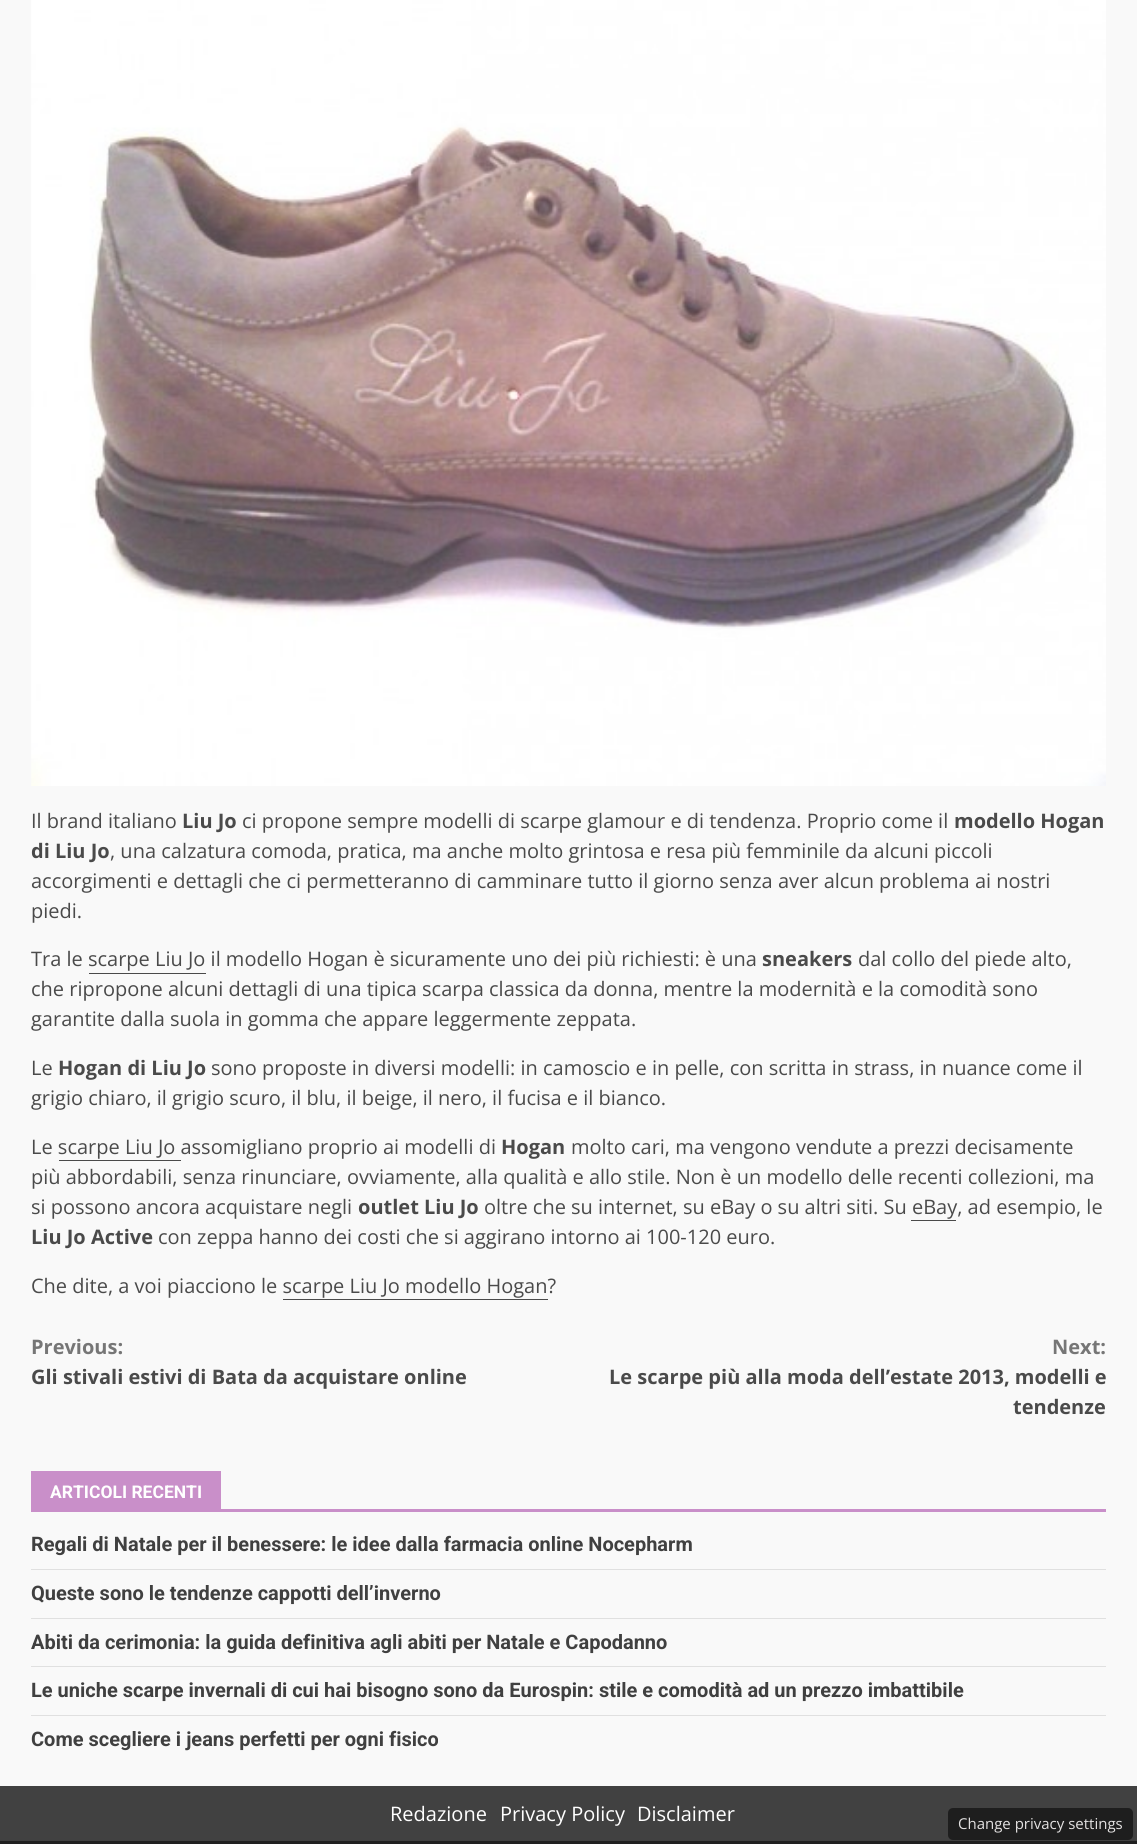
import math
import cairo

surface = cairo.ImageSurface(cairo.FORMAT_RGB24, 1137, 1844)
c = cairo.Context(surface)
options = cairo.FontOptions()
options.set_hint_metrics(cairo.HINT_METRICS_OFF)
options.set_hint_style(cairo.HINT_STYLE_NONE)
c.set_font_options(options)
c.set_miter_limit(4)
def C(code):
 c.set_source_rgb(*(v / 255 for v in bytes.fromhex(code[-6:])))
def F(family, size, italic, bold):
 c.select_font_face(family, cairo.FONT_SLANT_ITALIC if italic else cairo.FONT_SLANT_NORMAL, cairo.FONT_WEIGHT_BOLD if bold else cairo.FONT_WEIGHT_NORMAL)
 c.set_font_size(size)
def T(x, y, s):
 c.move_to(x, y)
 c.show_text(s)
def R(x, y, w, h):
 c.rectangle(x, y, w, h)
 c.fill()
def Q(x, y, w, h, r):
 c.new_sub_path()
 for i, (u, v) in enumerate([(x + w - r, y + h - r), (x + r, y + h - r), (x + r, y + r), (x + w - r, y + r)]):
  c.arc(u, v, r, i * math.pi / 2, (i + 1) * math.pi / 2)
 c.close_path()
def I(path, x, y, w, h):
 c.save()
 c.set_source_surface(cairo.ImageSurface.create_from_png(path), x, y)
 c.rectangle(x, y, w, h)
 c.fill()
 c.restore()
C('f9f9f9')
c.paint()
I('1.png',31,0,1075,786)
F('Open Sans',20,0,0)
C('4a4a4a')
T(31,828,'Il brand italiano')
F('Open Sans',20,0,1)
T(182,828,'Liu Jo')
F('Open Sans',20,0,0)
T(242,828,'ci propone sempre modelli di scarpe glamour e di tendenza. Proprio come il')
F('Open Sans',20,0,1)
T(954,828,'modello Hogan')
T(31,858,'di Liu Jo')
F('Open Sans',20,0,0)
T(110,858,', una calzatura comoda, pratica, ma anche molto grintosa e resa più femminile da alcuni piccoli')
T(31,888,'accorgimenti e dettagli che ci permetteranno di camminare tutto il giorno senza aver alcun problema ai nostri')
T(31,918,'piedi.')
T(31,966,'Tra le scarpe Liu Jo il modello Hogan è sicuramente uno dei più richiesti: è una')
F('Open Sans',20,0,1)
T(762,966,'sneakers')
F('Open Sans',20,0,0)
T(858,966,'dal collo del piede alto,')
R(89,973,117,1)
T(31,996,'che ripropone alcuni dettagli di una tipica scarpa classica da donna, mentre la modernità e la comodità sono')
T(31,1026,'garantite dalla suola in gomma che appare leggermente zeppata.')
T(31,1075,'Le')
F('Open Sans',20,0,1)
T(58,1075,'Hogan di Liu Jo')
F('Open Sans',20,0,0)
T(211,1075,'sono proposte in diversi modelli: in camoscio e in pelle, con scritta in strass, in nuance come il')
T(31,1105,'grigio chiaro, il grigio scuro, il blu, il beige, il nero, il fucisa e il bianco.')
T(31,1154,'Le scarpe Liu Jo assomigliano proprio ai modelli di')
F('Open Sans',20,0,1)
T(501,1154,'Hogan')
F('Open Sans',20,0,0)
T(571,1154,'molto cari, ma vengono vendute a prezzi decisamente')
R(59,1160,122,1)
T(31,1184,'più abbordabili, senza rinunciare, ovviamente, alla qualità e allo stile. Non è un modello delle recenti collezioni, ma')
T(31,1214,'si possono ancora acquistare negli')
F('Open Sans',20,0,1)
T(358,1214,'outlet Liu Jo')
F('Open Sans',20,0,0)
T(484,1214,'oltre che su internet, su eBay o su altri siti. Su eBay, ad esempio, le')
R(911,1220,45,1)
F('Open Sans',20,0,1)
T(31,1244,'Liu Jo Active')
F('Open Sans',20,0,0)
T(158,1244,'con zeppa hanno dei costi che si aggirano intorno ai 100-120 euro.')
T(31,1293,'Che dite, a voi piacciono le scarpe Liu Jo modello Hogan?')
R(283,1299,265,1)
F('Open Sans',20,0,1)
C('767676')
T(31,1354,'Previous:')
C('4a4a4a')
T(31,1384,'Gli stivali estivi di Bata da acquistare online')
C('767676')
T(1052,1354,'Next:')
C('4a4a4a')
T(609,1384,'Le scarpe più alla moda dell’estate 2013, modelli e')
T(1013,1414,'tendenze')
C('c98fc9')
R(31,1509,1075,3)
R(31,1471,190,38)
F('Roboto',17.5,0,1)
C('ffffff')
T(50,1498,'ARTICOLI RECENTI')
C('e0e0e0')
R(31,1569,1075,1)
F('Roboto',20,0,1)
C('404040')
T(31,1551,'Regali di Natale per il benessere: le idee dalla farmacia online Nocepharm')
C('e0e0e0')
R(31,1618,1075,1)
C('404040')
T(31,1600,'Queste sono le tendenze cappotti dell’inverno')
C('e0e0e0')
R(31,1666,1075,1)
C('404040')
T(31,1649,'Abiti da cerimonia: la guida definitiva agli abiti per Natale e Capodanno')
C('e0e0e0')
R(31,1715,1075,1)
C('404040')
T(31,1697,'Le uniche scarpe invernali di cui hai bisogno sono da Eurospin: stile e comodità ad un prezzo imbattibile')
T(31,1746,'Come scegliere i jeans perfetti per ogni fisico')
C('202020')
R(0,1841,1137,3)
C('414141')
R(0,1786,1137,55)
F('Open Sans',20,0,0)
C('ffffff')
T(390,1821,'Redazione')
T(500,1821,'Privacy Policy')
T(637,1821,'Disclaimer')
C('1e1e1e')
Q(948,1808,185,32,5)
c.fill()
F('Open Sans',15,0,0)
C('e3e1e1')
T(958,1829,'Change privacy settings')
surface.write_to_png('o.png')
